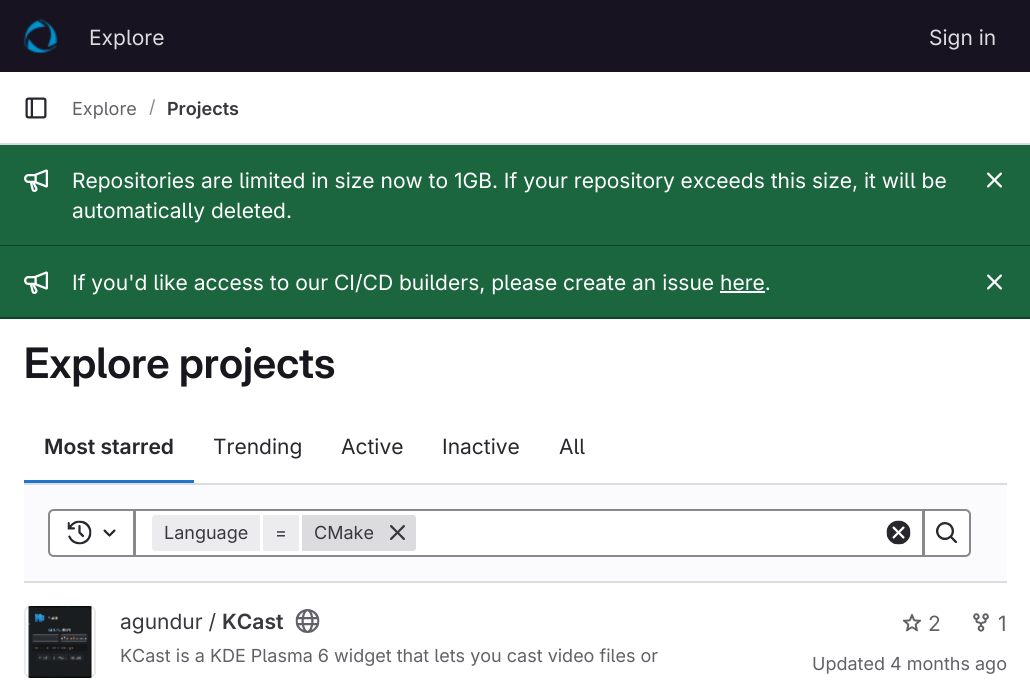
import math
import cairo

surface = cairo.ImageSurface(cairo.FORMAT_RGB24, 1030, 680)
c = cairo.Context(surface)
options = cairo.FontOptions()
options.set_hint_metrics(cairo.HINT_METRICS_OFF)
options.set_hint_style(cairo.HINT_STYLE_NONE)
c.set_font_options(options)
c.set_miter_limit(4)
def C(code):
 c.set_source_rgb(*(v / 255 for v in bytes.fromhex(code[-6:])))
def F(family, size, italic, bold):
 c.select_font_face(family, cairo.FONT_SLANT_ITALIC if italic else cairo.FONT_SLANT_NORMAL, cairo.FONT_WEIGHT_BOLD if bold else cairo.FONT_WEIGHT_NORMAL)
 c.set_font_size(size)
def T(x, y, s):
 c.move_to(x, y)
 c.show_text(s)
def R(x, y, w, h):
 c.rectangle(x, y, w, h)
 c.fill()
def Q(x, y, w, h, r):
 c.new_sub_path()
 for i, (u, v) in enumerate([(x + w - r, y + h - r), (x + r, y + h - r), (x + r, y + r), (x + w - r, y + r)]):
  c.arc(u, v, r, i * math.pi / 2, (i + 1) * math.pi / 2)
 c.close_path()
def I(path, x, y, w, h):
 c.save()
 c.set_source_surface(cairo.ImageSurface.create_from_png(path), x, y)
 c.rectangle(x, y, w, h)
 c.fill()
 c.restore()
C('ffffff')
c.paint()
C('171321')
R(0,0,1030,72)
I('1.png',23,19,35,35)
F('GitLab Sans',21,0,0)
C('dcdcde')
T(89,45,'Explore')
T(929,45,'Sign in')
R(0,143,1030,2)
I('2.png',25,97,22,22)
F('GitLab Sans',18,0,0)
C('626168')
T(72,115,'Explore')
C('89888d')
T(149,113,'/')
F('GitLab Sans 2 SemiBold',18,0,0)
C('3a383f')
T(167,115,'Projects')
C('1b653f')
R(0,145,1030,100)
C('0e4328')
R(0,245,1030,1)
I('3.png',24,169,24,23)
F('GitLab Sans',21,0,0)
C('ffffff')
T(72,188,'Repositories are limited in size now to 1GB. If your repository exceeds this size, it will be')
T(72,218,'automatically deleted.')
I('4.png',987,172,15,16)
C('1b653f')
R(0,246,1030,71)
C('0e4328')
R(0,317,1030,2)
I('3.png',24,271,24,23)
C('ffffff')
T(72,290,'If you\'d like access to our CI/CD builders, please create an issue here.')
R(720,291,45,2)
I('4.png',987,274,15,16)
F('GitLab Sans SemiBold',42,0,0)
C('18171d')
T(24,378,'Explore projects')
F('GitLab Sans 2 SemiBold',21,0,0)
C('28272d')
T(44,454,'Most starred')
C('1f75cb')
R(24,480,170,3)
F('GitLab Sans',21,0,0)
C('28272d')
T(213,454,'Trending')
T(341,454,'Active')
T(442,454,'Inactive')
T(559,454,'All')
C('fbfafd')
R(24,485,983,96)
C('dcdcde')
R(24,483,983,2)
R(24,581,983,2)
C('ffffff')
c.rectangle(135,510,788,46)
c.fill_preserve()
C('89888d')
c.stroke()
C('ffffff')
c.new_path()
c.move_to(54,510)
c.line_to(134,510)
c.line_to(134,556)
c.line_to(54,556)
c.curve_to(51,556,49,554,49,551)
c.line_to(49,515)
c.curve_to(49,512,51,510,54,510)
c.close_path()
c.fill_preserve()
C('89888d')
c.stroke()
I('5.png',67,520,25,25)
I('6.png',103,529,13,8)
C('ececef')
c.new_path()
c.move_to(155,515)
c.line_to(260,515)
c.line_to(260,551)
c.line_to(155,551)
c.curve_to(153.5,551,152,549.5,152,548)
c.line_to(152,518)
c.curve_to(152,516.5,153.5,515,155,515)
c.close_path()
c.fill()
F('GitLab Sans',18,0,0)
C('3a383f')
T(164,539,'Language')
C('ececef')
R(263,515,36,36)
C('3a383f')
T(275,539,'=')
C('dcdcde')
c.new_path()
c.move_to(302,515)
c.line_to(413,515)
c.curve_to(414.5,515,416,516.5,416,518)
c.line_to(416,548)
c.curve_to(416,549.5,414.5,551,413,551)
c.line_to(302,551)
c.close_path()
c.fill()
C('3a383f')
T(314,539,'CMake')
I('7.png',390,525,15,15)
I('8.png',886,520,25,25)
C('ffffff')
c.new_path()
c.move_to(924,510)
c.line_to(965,510)
c.curve_to(968,510,970,512,970,515)
c.line_to(970,551)
c.curve_to(970,554,968,556,965,556)
c.line_to(924,556)
c.close_path()
c.fill_preserve()
C('89888d')
c.stroke()
I('9.png',936,522,21,21)
I('10.png',28,606,64,72)
Q(25,607,70,70,5)
c.set_source_rgba(0.02,0.02,0.024,0.08)
c.stroke()
F('GitLab Sans',21,0,0)
C('3a383f')
T(120,629,'agundur /')
F('GitLab Sans 2 SemiBold',21,0,0)
T(222,629,'KCast')
I('11.png',295,609,25,24)
F('GitLab Sans',18,0,0)
C('626168')
T(120,662,'KCast is a KDE Plasma 6 widget that lets you cast video files or')
I('12.png',902,613,20,19)
F('GitLab Sans',21,0,0)
T(928,631,'2')
I('13.png',973,613,16,19)
T(998,631,'1')
F('GitLab Sans',18,0,0)
T(812,670,'Updated 4 months ago')
surface.write_to_png('o.png')
